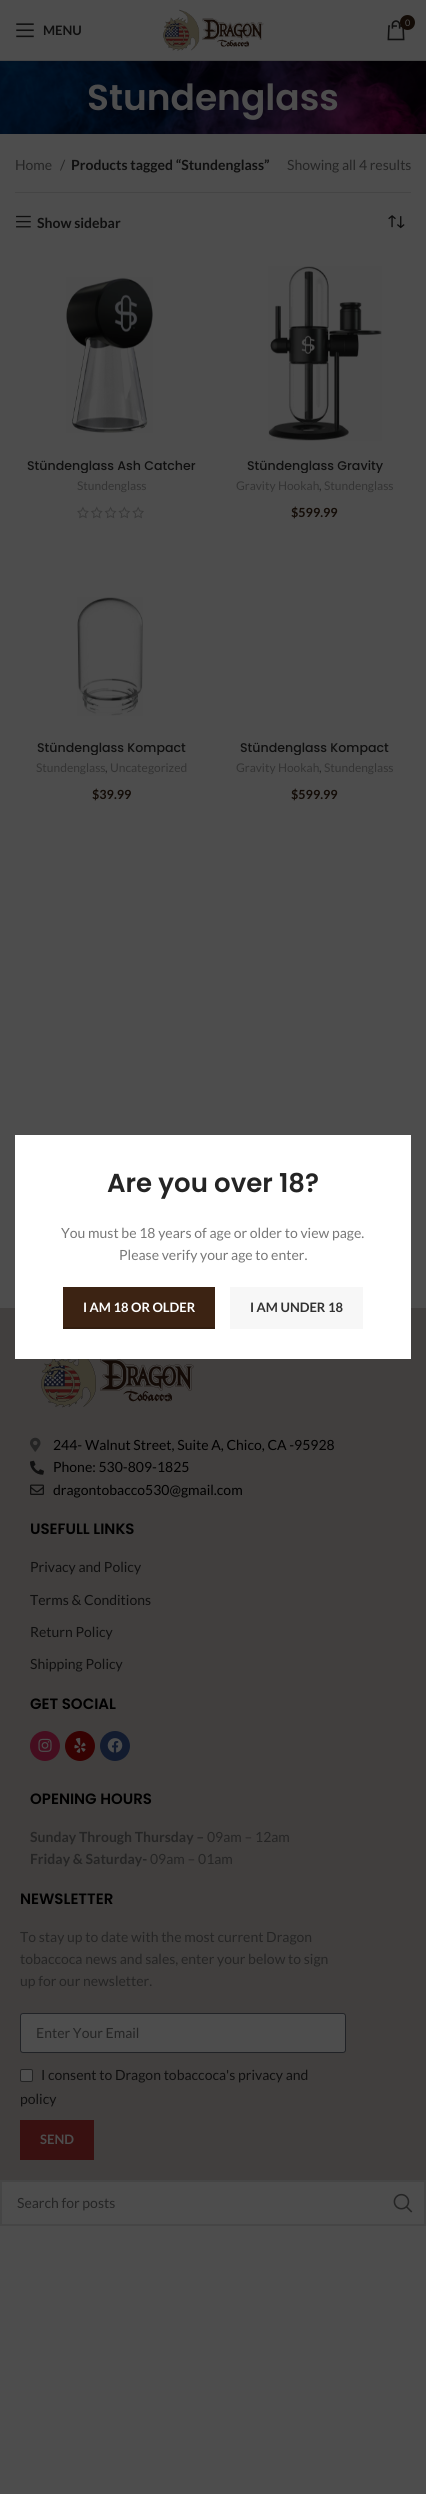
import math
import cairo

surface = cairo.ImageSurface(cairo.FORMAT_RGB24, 426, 2494)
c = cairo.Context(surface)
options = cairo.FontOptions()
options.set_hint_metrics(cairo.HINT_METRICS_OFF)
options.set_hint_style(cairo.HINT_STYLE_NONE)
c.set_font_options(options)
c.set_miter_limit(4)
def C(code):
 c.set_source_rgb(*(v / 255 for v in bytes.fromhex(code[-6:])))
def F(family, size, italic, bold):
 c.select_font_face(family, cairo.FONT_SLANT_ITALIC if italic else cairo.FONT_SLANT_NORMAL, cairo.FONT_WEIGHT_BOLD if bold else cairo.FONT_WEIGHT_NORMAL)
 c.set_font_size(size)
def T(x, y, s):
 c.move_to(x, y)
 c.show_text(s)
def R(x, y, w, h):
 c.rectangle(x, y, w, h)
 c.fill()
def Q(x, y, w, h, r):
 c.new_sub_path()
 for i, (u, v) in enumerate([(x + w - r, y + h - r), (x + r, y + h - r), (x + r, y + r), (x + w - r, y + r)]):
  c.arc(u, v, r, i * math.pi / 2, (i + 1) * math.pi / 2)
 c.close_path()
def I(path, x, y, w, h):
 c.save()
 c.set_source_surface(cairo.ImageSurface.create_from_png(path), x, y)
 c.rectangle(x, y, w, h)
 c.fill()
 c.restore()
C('4d4d4d')
c.paint()
C('454545')
R(0,60,426,1)
I('1.png',163,9,101,42)
I('2.png',387,20,18,21)
C('120b06')
c.arc(407.5,22.5,7.5,0,2 * math.pi)
c.fill()
F('Lato',9,0,0)
C('4d4d4d')
T(405,26,'0')
I('3.png',16,23,18,15)
F('Lato',13,0,1)
C('0f0f0f')
T(43,35,'MENU')
I('4.png',0,61,426,73)
F('Poppins SemiBold',36,0,0)
C('4d4d4d')
T(87,110,'Stundenglass')
C('444444')
R(15,192,396,1)
F('Lato',14,0,0)
C('242424')
T(15,170,'Home')
T(60,170,'/')
F('Lato',14,0,1)
C('0f0f0f')
T(71,170,'Products tagged “Stundenglass”')
F('Lato',14,0,0)
C('242424')
T(287,170,'Showing all 4 results')
I('5.png',16,215,15,13)
F('Lato',14,0,1)
C('0f0f0f')
T(37,228,'Show sidebar')
I('6.png',388,215,17,14)
I('7.png',66,277,87,156)
c.save()
c.rectangle(25,458,173,15)
c.clip()
F('Poppins Medium',12.6,0,0)
T(27,470,'Stündenglass Ash Catcher')
c.restore()
F('Lato',12,0,0)
C('323232')
T(77,490,'Stundenglass')
I('8.png',77,506,67,13)
I('9.png',268,266,114,175)
c.save()
c.rectangle(228,458,173,15)
c.clip()
F('Poppins Medium',12.6,0,0)
C('0f0f0f')
T(247,470,'Stündenglass Gravity')
c.restore()
T(236,490,'Gravity Hookah')
C('242424')
T(319,490,',')
C('323232')
T(324,490,'Stundenglass')
F('Lato',12.6,0,1)
C('120b06')
T(291,517,'$599.99')
I('10.png',77,597,66,119)
c.save()
c.rectangle(25,740,173,15)
c.clip()
F('Poppins Medium',12.6,0,0)
C('0f0f0f')
T(37,752,'Stündenglass Kompact')
c.restore()
F('Lato',12,0,0)
C('323232')
T(36,772,'Stundenglass')
C('242424')
T(105,772,',')
C('323232')
T(110,772,'Uncategorized')
F('Lato',12.6,0,1)
C('120b06')
T(92,799,'$39.99')
c.save()
c.rectangle(228,740,173,15)
c.clip()
F('Poppins Medium',12.6,0,0)
C('0f0f0f')
T(240,752,'Stündenglass Kompact')
c.restore()
F('Lato',12,0,0)
C('323232')
T(236,772,'Gravity Hookah')
C('242424')
T(319,772,',')
C('323232')
T(324,772,'Stundenglass')
F('Lato',12.6,0,1)
C('120b06')
T(291,799,'$599.99')
C('413f3e')
R(0,1308,426,872)
I('11.png',41,1359,153,49)
I('12.png',30,1437,11,15)
F('Lato',14,0,0)
C('000000')
T(53,1450,'244- Walnut Street, Suite A, Chico, CA -95928')
I('13.png',30,1460,14,15)
T(53,1472,'Phone: 530-809-1825')
I('14.png',30,1484,14,11)
T(53,1495,'dragontobacco530@gmail.com')
F('Poppins SemiBold',15,0,0)
T(30,1534,'USEFULL LINKS')
F('Lato',14,0,0)
C('0f0f0f')
T(30,1572,'Privacy and Policy')
T(30,1605,'Terms & Conditions')
T(30,1637,'Return Policy')
T(30,1669,'Shipping Policy')
F('Poppins SemiBold',15,0,0)
C('000000')
T(30,1709,'GET SOCIAL')
C('440e1f')
c.new_path()
c.arc(45,1746,15,0,2 * math.pi)
c.fill()
I('15.png',38,1738,14,14)
C('350202')
c.arc(80,1746,15,0,2 * math.pi)
c.fill()
I('16.png',74,1737,12,16)
C('121b2e')
c.arc(115,1746,15,0,2 * math.pi)
c.fill()
I('17.png',107,1738,16,15)
C('000000')
T(30,1804,'OPENING HOURS')
F('Lato',14,0,1)
C('242424')
T(30,1842,'Sunday Through Thursday –')
F('Lato',14,0,0)
T(207,1842,'09am – 12am')
F('Lato',14,0,1)
T(30,1864,'Friday & Saturday-')
F('Lato',14,0,0)
T(150,1864,'09am – 01am')
F('Poppins SemiBold',15,0,0)
C('000000')
T(20,1904,'NEWSLETTER')
F('Lato',14,0,0)
C('242424')
T(20,1942,'To stay up to date with the most current Dragon')
T(20,1964,'tobaccoca news and sales, enter your below to sign')
T(20,1986,'up for our newsletter.')
C('4d4d4d')
Q(20.5,2013.5,325,39,2.5)
c.fill_preserve()
C('202226')
c.set_line_width(1)
c.stroke()
C('242424')
T(36,2038,'Enter Your Email')
C('4d4d4d')
Q(20.5,2069.5,12,12,1.5)
c.fill_preserve()
C('232323')
c.stroke()
C('0f0f0f')
T(41,2080,'I consent to Dragon tobaccoca\'s privacy and')
T(20,2104,'policy')
C('381010')
R(20,2120,74,40)
F('Lato',13,0,1)
C('4d4d4d')
T(40,2144,'SEND')
C('ffffff')
R(15,1135,396,224)
F('Poppins SemiBold',26,0,0)
C('242424')
T(107,1192,'Are you over 18?')
F('Lato',14,0,0)
C('777777')
T(61,1238,'You must be 18 years of age or older to view page.')
T(119,1260,'Please verify your age to enter.')
C('3c2313')
R(63,1287,152,40)
C('331e10')
R(63,1327,152,2)
F('Lato',13,0,1)
C('ffffff')
T(83,1312,'I AM 18 OR OLDER')
C('f7f7f7')
R(230,1287,133,42)
C('323232')
T(250,1312,'I AM UNDER 18')
c.rectangle(1,2181,424,44)
C('454545')
c.set_line_width(2)
c.stroke()
F('Lato',14,0,0)
C('242424')
T(17,2208,'Search for posts')
I('18.png',393,2193,20,20)
surface.write_to_png('o.png')
